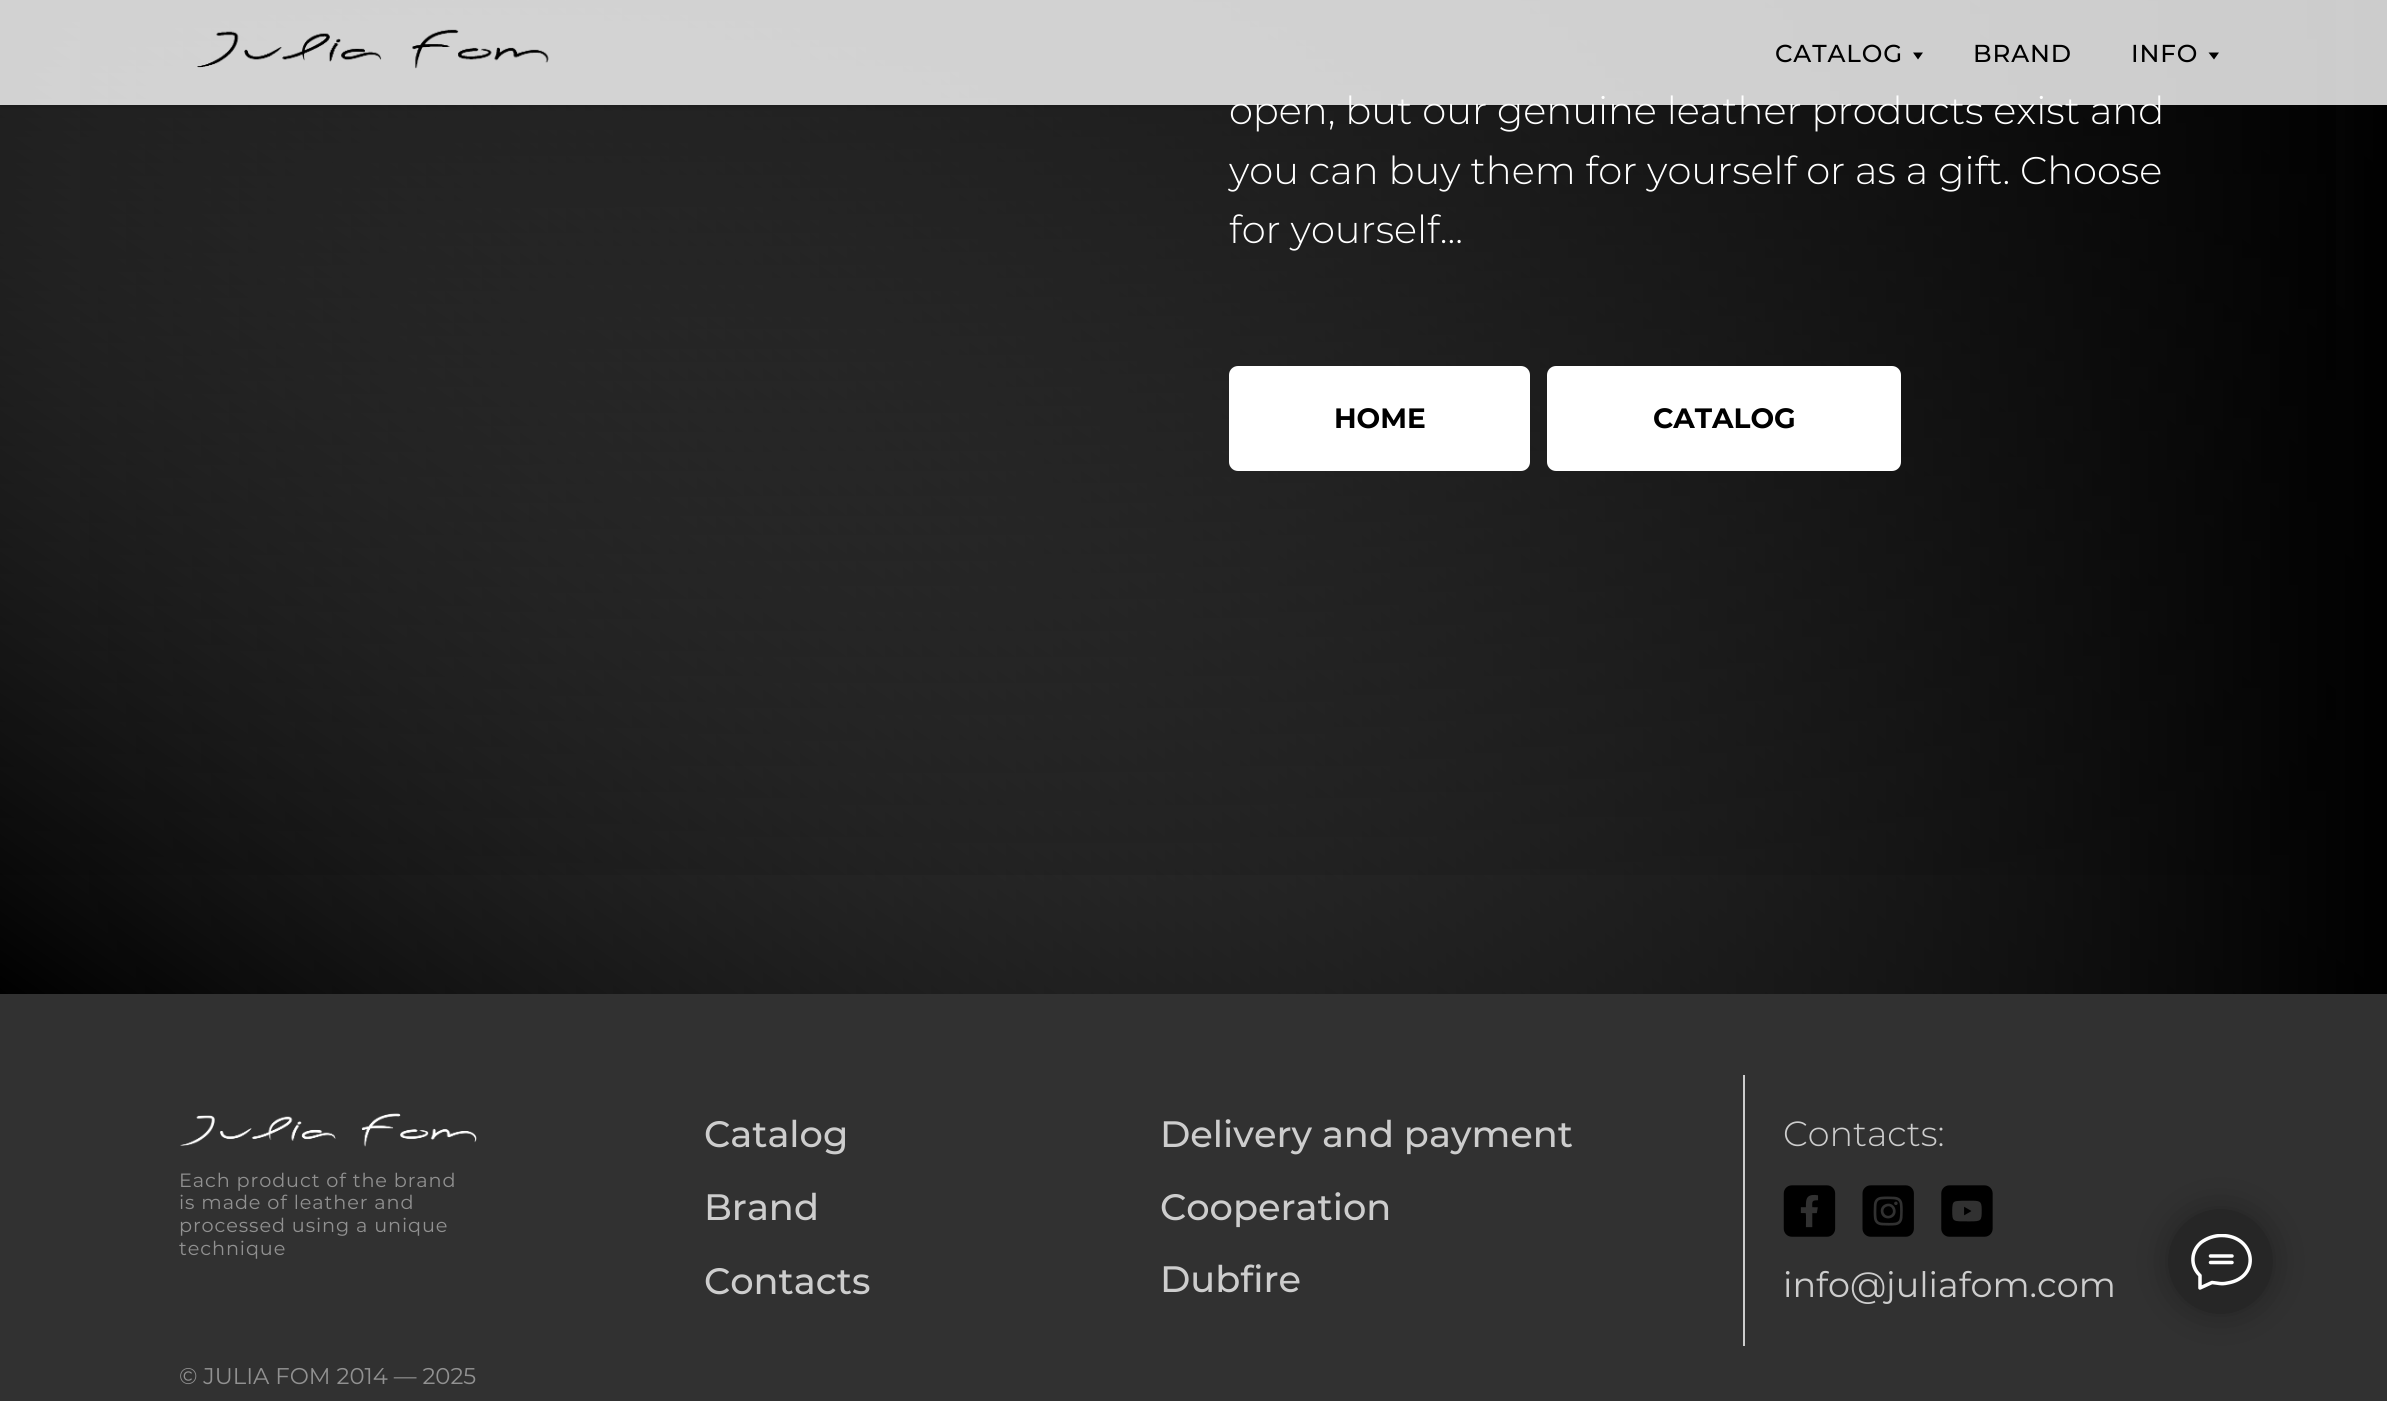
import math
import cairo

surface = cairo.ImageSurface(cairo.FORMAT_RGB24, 2387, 1401)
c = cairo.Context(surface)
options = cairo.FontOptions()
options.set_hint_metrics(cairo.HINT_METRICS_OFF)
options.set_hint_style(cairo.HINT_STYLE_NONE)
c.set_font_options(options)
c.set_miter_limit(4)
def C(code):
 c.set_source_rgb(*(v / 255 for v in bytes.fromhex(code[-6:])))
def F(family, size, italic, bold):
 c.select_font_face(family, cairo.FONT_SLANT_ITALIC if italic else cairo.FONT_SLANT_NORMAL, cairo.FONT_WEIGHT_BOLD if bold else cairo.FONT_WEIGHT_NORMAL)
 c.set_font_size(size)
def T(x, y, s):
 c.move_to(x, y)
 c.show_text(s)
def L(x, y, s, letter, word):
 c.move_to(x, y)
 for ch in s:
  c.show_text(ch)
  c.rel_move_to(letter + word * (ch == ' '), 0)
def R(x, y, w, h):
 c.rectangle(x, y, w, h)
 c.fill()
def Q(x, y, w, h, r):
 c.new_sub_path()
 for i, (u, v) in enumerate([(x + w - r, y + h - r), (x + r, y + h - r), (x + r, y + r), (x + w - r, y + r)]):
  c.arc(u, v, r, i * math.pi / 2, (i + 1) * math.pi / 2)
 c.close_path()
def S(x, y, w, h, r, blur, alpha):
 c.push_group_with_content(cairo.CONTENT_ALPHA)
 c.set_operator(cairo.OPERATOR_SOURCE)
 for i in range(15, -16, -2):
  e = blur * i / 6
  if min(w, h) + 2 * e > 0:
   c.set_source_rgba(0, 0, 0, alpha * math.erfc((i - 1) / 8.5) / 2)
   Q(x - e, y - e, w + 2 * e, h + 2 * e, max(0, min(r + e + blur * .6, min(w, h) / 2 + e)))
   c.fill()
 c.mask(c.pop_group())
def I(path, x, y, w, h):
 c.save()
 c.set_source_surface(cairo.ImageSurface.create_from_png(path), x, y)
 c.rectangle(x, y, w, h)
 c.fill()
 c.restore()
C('ffffff')
c.paint()
gradient = cairo.LinearGradient(429,1289,1958,-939)
gradient.add_color_stop_rgba(0,0,0,0,1)
gradient.add_color_stop_rgba(1,1,1,1,1)
c.set_source(gradient)
R(0,0,2373,994)
gradient = cairo.LinearGradient(2387,175,0,175)
gradient.add_color_stop_rgba(0,0,0,0,1)
gradient.add_color_stop_rgba(1,0,0,0,0)
c.set_source(gradient)
R(80,0,2307,994)
gradient = cairo.LinearGradient(1193,-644,1194,994)
gradient.add_color_stop_rgba(0,0,0,0,1)
gradient.add_color_stop_rgba(1,0,0,0,0)
c.set_source(gradient)
R(0,0,2336,875)
c.save()
c.rectangle(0,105,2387,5)
c.clip()
C('000000')
S(0,2,2387,105,0,2.5,.2)
c.restore()
F('Montserrat Light',38.5,0,0)
C('ffffff')
T(1229,124,'open, but our genuine leather products exist and')
c.set_source_rgba(1,1,1,0.8)
R(0,0,2387,105)
I('1.png',197,29,352,40)
F('Montserrat Medium',24.5,0,0)
C('000000')
L(1775,62,'CATALOG',.9,0)
c.new_path()
c.move_to(1913,52.5)
c.line_to(1923,52.5)
c.line_to(1918,59.5)
c.close_path()
c.fill()
L(1973,62,'BRAND',.9,0)
L(2131,62,'INFO',.9,0)
c.new_path()
c.move_to(2208.5,52.5)
c.line_to(2219,52.5)
c.line_to(2214,59.5)
c.close_path()
c.fill()
C('313131')
R(0,994,2387,407)
C('000000')
S(2168,1209,105,105,52.5,17.5,.3)
C('262626')
c.arc(2220.5,1261.5,52.5,0,2 * math.pi)
c.fill()
c.save()
c.rectangle(2191,1234,61,56)
c.clip()
c.new_path()
c.move_to(2210.5,1256)
c.line_to(2232,1256)
c.move_to(2210.5,1262.5)
c.line_to(2232,1262.5)
c.move_to(2199.5,1275)
c.curve_to(2190,1265.5,2191,1251,2201,1242.5)
c.curve_to(2207,1238,2214.5,1235.5,2221.5,1235.5)
c.curve_to(2255.5,1235.5,2261.5,1277.5,2227.5,1283)
c.curve_to(2221,1284.5,2218,1283,2212,1282.5)
c.line_to(2200,1288)
c.line_to(2200,1275.5)
c.close_path()
C('ffffff')
c.set_line_width(3.5)
c.set_line_cap(cairo.LINE_CAP_ROUND)
c.set_line_join(cairo.LINE_JOIN_ROUND)
c.stroke()
c.restore()
F('Montserrat Light',38.5,0,0)
C('ffffff')
T(1229,184,'you can buy them for yourself or as a gift. Choose')
T(1229,243,'for yourself...')
Q(1229,366,301,105,9)
c.fill()
F('Montserrat',28,0,1)
C('000000')
T(1334,428,'HOME')
C('ffffff')
Q(1547,366,354,105,9)
c.fill()
C('000000')
T(1653,428,'CATALOG')
I('2.png',180,1113,297,34)
F('Montserrat Medium',36.75,0,0)
C('cdcdcd')
T(704,1147,'Catalog')
T(1160,1147,'Delivery and payment')
C('cccccc')
R(1743,1075,2,271)
F('Montserrat Light',35,0,0)
C('cdcdcd')
T(1783,1146,'Contacts:')
F('Montserrat',19.25,0,0)
C('919191')
L(179,1187,'Each product of the brand',.9,0)
L(179,1209,'is made of leather and',.9,0)
L(179,1232,'processed using a unique',.9,0)
L(179,1255,'technique',.9,0)
F('Montserrat Medium',36.75,0,0)
C('cdcdcd')
T(704,1220,'Brand')
T(1160,1220,'Cooperation')
I('3.png',1783,1185,53,52)
I('4.png',1862,1185,52,52)
I('5.png',1941,1185,52,52)
T(704,1294,'Contacts')
T(1160,1292,'Dubfire')
F('Montserrat',35,0,0)
T(1783,1297,'info@juliafom.com')
F('Montserrat',22.75,0,0)
C('919191')
T(179,1384,'© JULIA FOM 2014 — 2025')
surface.write_to_png('o.png')
